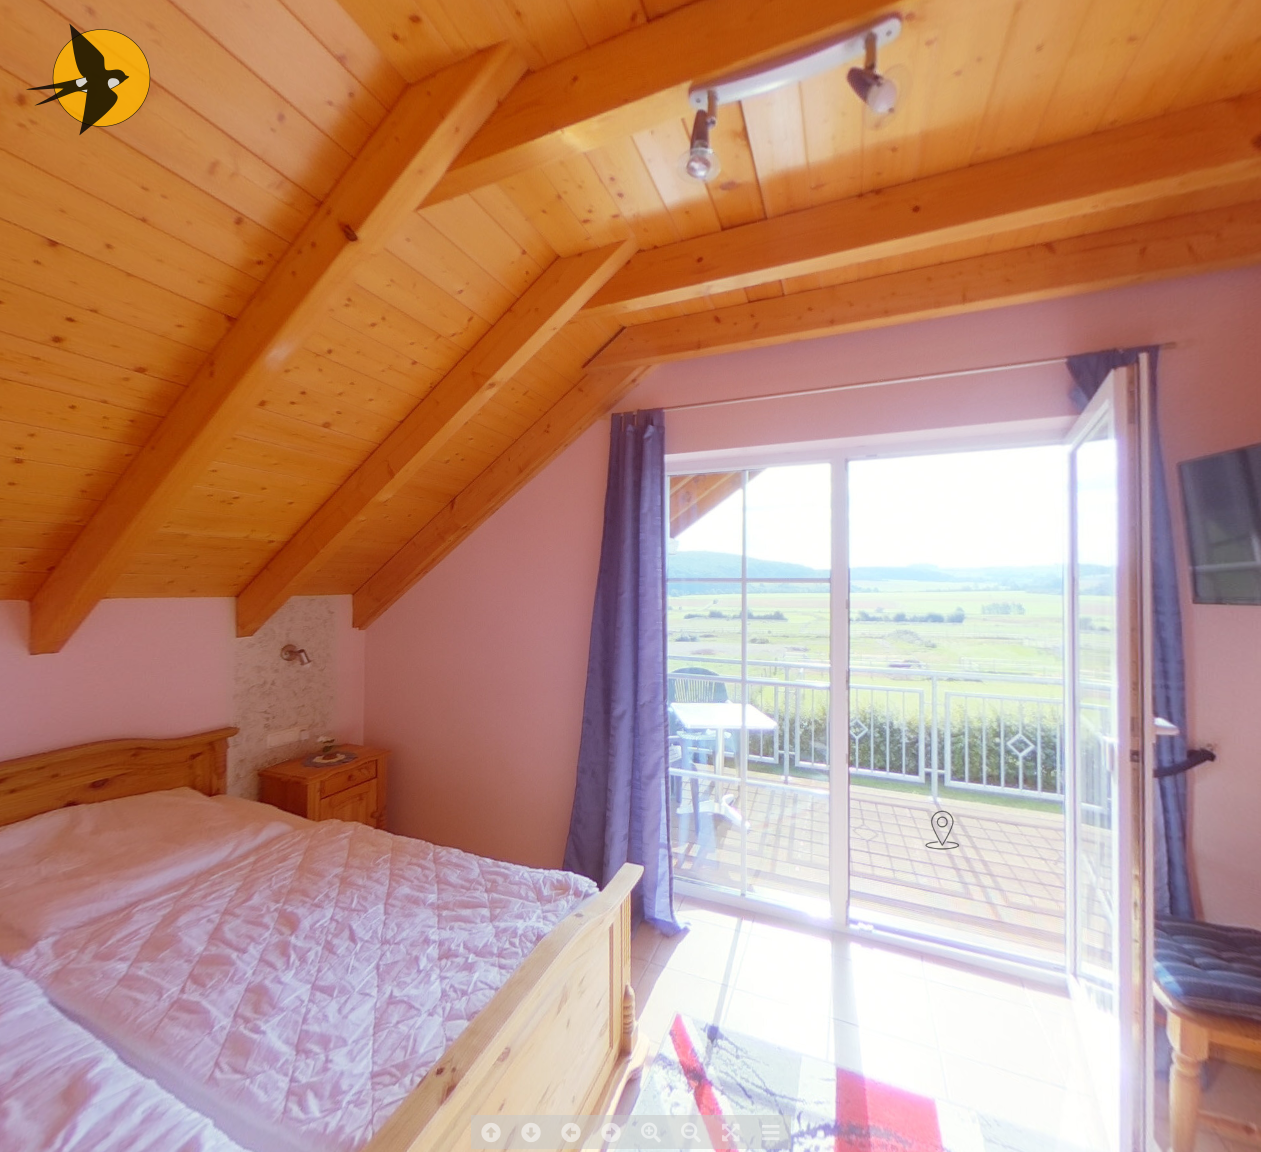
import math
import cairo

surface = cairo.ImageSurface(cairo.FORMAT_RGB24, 1261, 1152)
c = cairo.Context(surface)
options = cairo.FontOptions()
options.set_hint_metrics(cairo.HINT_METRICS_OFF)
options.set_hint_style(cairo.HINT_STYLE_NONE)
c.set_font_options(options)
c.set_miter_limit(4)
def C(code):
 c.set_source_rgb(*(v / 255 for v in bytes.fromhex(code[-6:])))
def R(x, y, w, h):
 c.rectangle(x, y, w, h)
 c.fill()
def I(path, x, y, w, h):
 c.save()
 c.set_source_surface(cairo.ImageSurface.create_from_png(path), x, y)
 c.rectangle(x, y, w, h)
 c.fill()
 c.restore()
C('ffffff')
c.paint()
I('1.png',0,0,1261,1152)
I('2.png',925,810,35,40)
I('3.png',26,23,125,113)
c.set_source_rgba(0.784,0.784,0.784,0.53)
R(471,1115,40,34)
I('4.png',481,1122,20,21)
R(511,1115,40,34)
I('5.png',521,1122,20,21)
R(551,1115,40,34)
I('6.png',561,1122,20,21)
R(591,1115,40,34)
I('7.png',601,1122,20,20)
R(631,1115,40,34)
I('8.png',641,1122,20,21)
R(671,1115,40,34)
I('9.png',681,1122,20,21)
R(711,1115,40,34)
I('10.png',722,1123,18,19)
R(751,1115,40,34)
I('11.png',762,1125,18,16)
surface.write_to_png('o.png')
